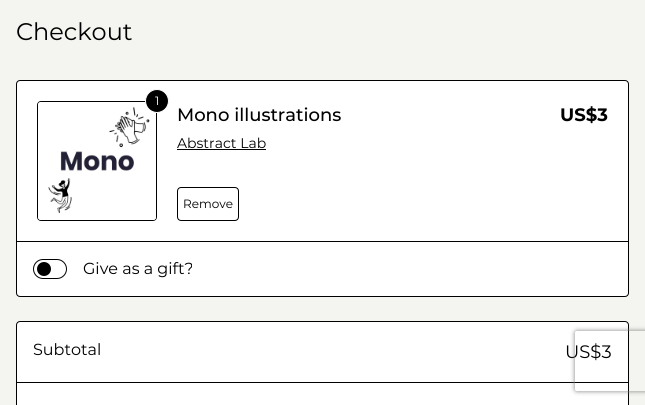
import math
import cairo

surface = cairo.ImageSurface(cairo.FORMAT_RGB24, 645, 405)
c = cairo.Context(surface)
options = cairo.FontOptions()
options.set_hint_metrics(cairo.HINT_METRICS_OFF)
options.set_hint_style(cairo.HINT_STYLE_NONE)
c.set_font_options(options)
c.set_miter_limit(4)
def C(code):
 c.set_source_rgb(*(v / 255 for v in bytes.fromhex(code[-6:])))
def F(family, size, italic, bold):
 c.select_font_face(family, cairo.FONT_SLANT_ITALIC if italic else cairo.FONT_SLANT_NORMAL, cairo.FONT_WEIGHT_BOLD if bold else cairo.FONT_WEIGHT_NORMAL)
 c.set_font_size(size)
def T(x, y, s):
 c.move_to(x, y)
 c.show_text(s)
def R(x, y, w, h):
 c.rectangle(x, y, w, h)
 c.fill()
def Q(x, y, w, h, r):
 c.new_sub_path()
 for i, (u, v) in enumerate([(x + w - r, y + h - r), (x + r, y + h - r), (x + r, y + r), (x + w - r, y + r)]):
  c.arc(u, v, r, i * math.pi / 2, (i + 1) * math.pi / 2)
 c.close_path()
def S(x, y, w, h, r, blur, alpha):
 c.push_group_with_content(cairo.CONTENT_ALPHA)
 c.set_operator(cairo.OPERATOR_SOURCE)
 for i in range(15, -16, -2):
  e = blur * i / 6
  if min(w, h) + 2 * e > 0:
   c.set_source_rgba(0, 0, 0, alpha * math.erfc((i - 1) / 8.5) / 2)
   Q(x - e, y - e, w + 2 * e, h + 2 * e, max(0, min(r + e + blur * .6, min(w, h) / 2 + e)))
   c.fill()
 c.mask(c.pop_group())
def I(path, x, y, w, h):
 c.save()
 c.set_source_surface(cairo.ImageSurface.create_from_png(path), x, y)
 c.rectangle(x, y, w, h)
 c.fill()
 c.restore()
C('f4f4f0')
c.paint()
F('Montserrat',24,0,0)
C('000000')
T(16,40,'Checkout')
C('ffffff')
Q(16.5,80.5,612,216,3.5)
c.fill_preserve()
C('000000')
c.set_line_width(1)
c.stroke()
Q(37.5,101.5,119,119,3.5)
c.stroke()
I('1.png',38,102,118,118)
c.arc(157,101,11.5,0,2 * math.pi)
c.fill_preserve()
C('ffffff')
c.stroke()
F('Montserrat',12,0,0)
T(155,105,'1')
F('Montserrat Medium',18,0,0)
C('000000')
T(177,121,'Mono illustrations')
F('Montserrat',14,0,0)
T(177,148,'Abstract Lab')
R(177,149,89,1)
Q(177.5,187.5,61,33,3.5)
c.stroke()
F('Montserrat',12,0,0)
T(183,208,'Remove')
F('Montserrat',18,0,1)
T(560,121,'US$3')
R(17,241,611,1)
Q(33.5,259.5,33,19,9.5)
c.stroke()
c.arc(44,269,7,0,2 * math.pi)
c.fill()
F('Montserrat',16,0,0)
T(83,274,'Give as a gift?')
C('ffffff')
c.new_path()
c.move_to(20,321)
c.line_to(625,321)
c.curve_to(627,321,629,323,629,325)
c.line_to(629,405)
c.line_to(16,405)
c.line_to(16,325)
c.curve_to(16,323,18,321,20,321)
c.close_path()
c.fill()
Q(16.5,321.5,612,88,3.5)
C('000000')
c.stroke()
T(33,355,'Subtotal')
F('Montserrat',18,0,0)
T(565,358,'US$3')
R(17,382,611,1)
c.save()
c.set_fill_rule(cairo.FILL_RULE_EVEN_ODD)
c.new_path()
c.move_to(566,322)
c.line_to(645,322)
c.line_to(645,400)
c.line_to(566,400)
c.close_path()
c.move_to(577,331)
c.line_to(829,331)
c.curve_to(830,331,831,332,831,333)
c.line_to(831,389)
c.curve_to(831,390,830,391,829,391)
c.line_to(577,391)
c.curve_to(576,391,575,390,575,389)
c.line_to(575,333)
c.curve_to(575,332,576,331,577,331)
c.close_path()
c.clip()
C('808080')
S(575,331,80,60,2,2.5,1)
c.restore()
surface.write_to_png('o.png')
